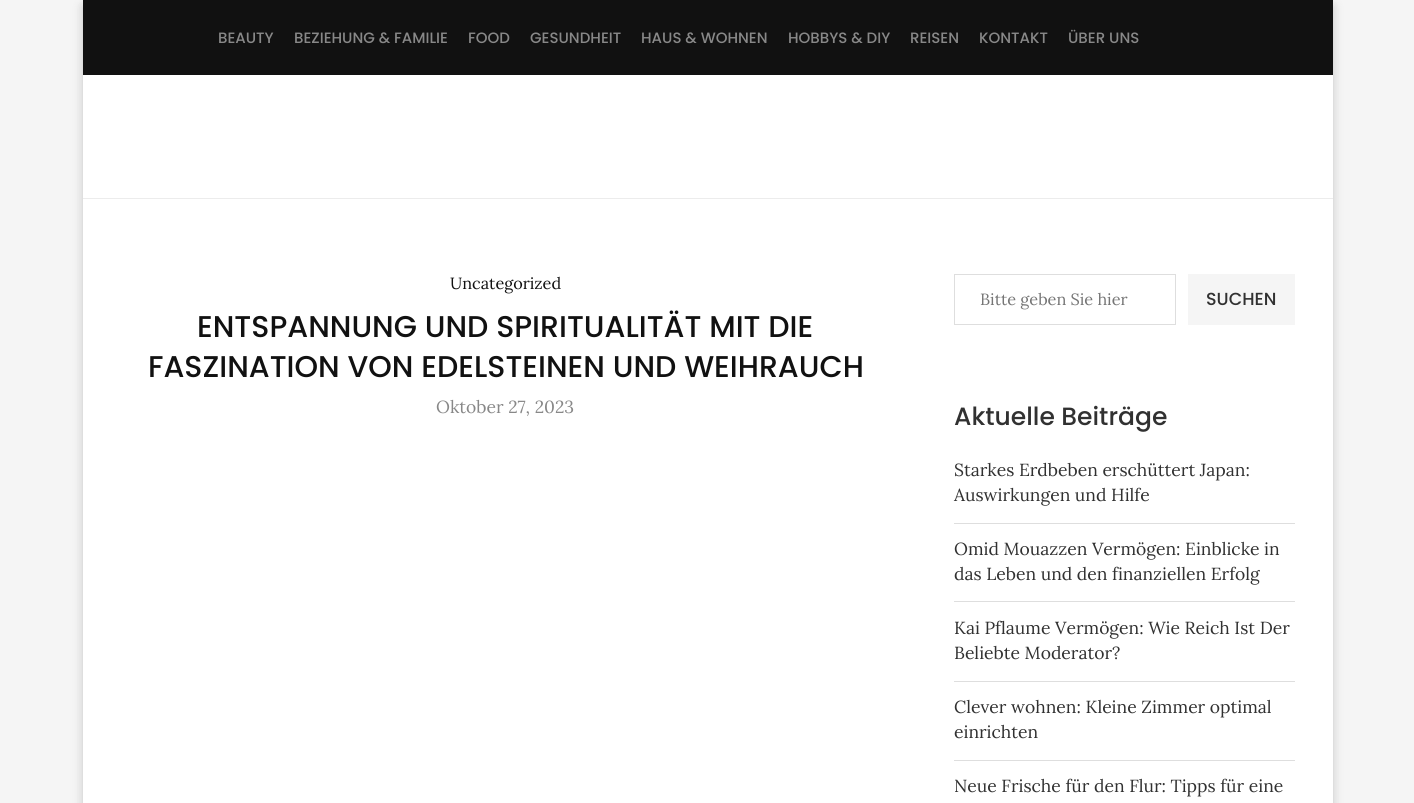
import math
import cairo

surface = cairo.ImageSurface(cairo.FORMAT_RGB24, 1414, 803)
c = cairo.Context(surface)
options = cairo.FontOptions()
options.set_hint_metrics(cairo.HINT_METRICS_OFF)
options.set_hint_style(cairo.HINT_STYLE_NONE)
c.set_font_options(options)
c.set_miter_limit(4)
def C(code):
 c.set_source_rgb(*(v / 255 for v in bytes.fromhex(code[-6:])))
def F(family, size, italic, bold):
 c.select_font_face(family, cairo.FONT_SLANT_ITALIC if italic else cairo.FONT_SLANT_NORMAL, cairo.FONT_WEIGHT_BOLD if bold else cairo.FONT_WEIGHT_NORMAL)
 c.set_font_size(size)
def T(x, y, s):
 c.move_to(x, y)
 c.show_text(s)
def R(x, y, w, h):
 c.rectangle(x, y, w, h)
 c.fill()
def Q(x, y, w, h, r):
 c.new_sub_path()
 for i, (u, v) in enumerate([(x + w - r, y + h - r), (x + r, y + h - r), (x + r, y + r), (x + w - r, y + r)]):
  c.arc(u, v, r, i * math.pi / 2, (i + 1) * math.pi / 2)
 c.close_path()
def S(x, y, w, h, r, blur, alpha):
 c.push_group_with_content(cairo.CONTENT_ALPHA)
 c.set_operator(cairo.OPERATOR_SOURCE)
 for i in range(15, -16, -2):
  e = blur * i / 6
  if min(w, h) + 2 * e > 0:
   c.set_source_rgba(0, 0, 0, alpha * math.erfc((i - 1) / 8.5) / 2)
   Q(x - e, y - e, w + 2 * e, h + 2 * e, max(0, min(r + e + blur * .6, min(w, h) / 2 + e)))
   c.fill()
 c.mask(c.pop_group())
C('f5f5f5')
c.paint()
C('000000')
S(83,6,1250,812,0,5,.2)
C('ffffff')
R(83,75,1250,728)
C('111111')
R(83,0,1250,75)
F('Poppins Medium',15,0,0)
C('888888')
T(218,43,'BEAUTY')
T(294,43,'BEZIEHUNG & FAMILIE')
T(468,43,'FOOD')
T(530,43,'GESUNDHEIT')
T(641,43,'HAUS & WOHNEN')
T(788,43,'HOBBYS & DIY')
T(910,43,'REISEN')
T(979,43,'KONTAKT')
T(1068,43,'ÜBER UNS')
C('ececec')
R(83,198,1250,1)
F('Lora',16.25,0,0)
C('111111')
T(450,289,'Uncategorized')
F('Poppins Medium',30,0,0)
T(197,337,'ENTSPANNUNG UND SPIRITUALITÄT MIT DIE')
T(148,377,'FASZINATION VON EDELSTEINEN UND WEIHRAUCH')
F('Lora',17.5,0,0)
C('888888')
T(436,413,'Oktober 27, 2023')
c.rectangle(954.5,274.5,221,50)
C('dedede')
c.set_line_width(1)
c.stroke()
F('Lora',16.25,0,0)
C('757575')
T(980,305,'Bitte geben Sie hier')
C('f5f5f5')
R(1188,274,107,51)
F('Poppins Medium',17.5,0,0)
C('313131')
T(1206,305,'SUCHEN')
F('Poppins Medium',25,0,0)
T(954,425,'Aktuelle Beiträge')
C('dedede')
R(954,523,341,1)
F('Lora',17.5,0,0)
C('313131')
T(954,476,'Starkes Erdbeben erschüttert Japan:')
T(954,501,'Auswirkungen und Hilfe')
C('dedede')
R(954,601,341,1)
C('313131')
T(954,555,'Omid Mouazzen Vermögen: Einblicke in')
T(954,580,'das Leben und den finanziellen Erfolg')
C('dedede')
R(954,681,341,1)
C('313131')
T(954,634,'Kai Pflaume Vermögen: Wie Reich Ist Der')
T(954,659,'Beliebte Moderator?')
C('dedede')
R(954,760,341,1)
C('313131')
T(954,713,'Clever wohnen: Kleine Zimmer optimal')
T(954,738,'einrichten')
T(954,792,'Neue Frische für den Flur: Tipps für eine')
surface.write_to_png('o.png')
